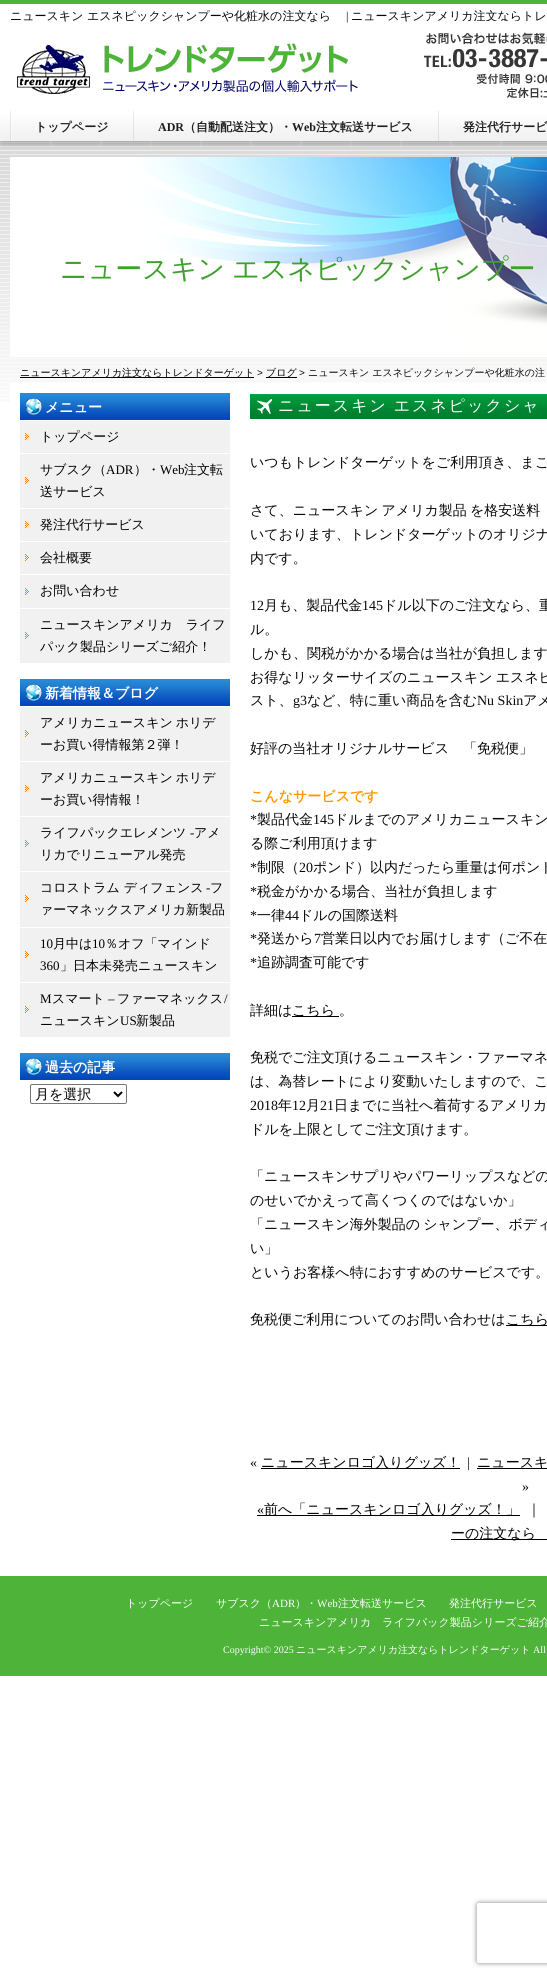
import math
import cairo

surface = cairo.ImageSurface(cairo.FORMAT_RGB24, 547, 1977)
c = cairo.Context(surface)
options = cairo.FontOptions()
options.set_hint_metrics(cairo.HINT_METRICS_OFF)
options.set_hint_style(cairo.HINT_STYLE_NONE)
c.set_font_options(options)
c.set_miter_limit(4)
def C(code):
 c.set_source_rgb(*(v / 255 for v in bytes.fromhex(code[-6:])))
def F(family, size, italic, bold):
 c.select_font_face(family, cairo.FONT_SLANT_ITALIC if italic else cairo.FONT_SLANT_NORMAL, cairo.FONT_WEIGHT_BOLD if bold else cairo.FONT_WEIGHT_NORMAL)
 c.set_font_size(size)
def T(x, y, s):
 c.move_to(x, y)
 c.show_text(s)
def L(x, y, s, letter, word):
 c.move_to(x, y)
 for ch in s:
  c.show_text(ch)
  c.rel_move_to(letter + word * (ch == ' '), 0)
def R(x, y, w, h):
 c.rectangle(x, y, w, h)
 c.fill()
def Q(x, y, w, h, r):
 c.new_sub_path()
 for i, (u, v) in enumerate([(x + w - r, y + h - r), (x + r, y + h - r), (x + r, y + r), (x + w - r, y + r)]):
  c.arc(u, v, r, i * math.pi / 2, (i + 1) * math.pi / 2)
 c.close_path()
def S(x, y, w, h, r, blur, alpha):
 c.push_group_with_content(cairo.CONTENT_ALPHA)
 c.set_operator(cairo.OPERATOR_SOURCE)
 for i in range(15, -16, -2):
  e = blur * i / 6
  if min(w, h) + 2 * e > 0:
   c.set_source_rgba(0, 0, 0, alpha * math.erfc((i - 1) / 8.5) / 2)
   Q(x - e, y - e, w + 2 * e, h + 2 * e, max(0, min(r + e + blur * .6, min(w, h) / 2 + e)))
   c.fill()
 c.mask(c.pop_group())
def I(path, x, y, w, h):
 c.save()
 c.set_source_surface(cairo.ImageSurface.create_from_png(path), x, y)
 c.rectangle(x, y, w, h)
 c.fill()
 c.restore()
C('ffffff')
c.paint()
I('1.png',0,0,547,402)
F('WenQuanYi Zen Hei Medium',12,0,0)
C('080808')
T(10,20,'ニュースキン エスネピックシャンプーや化粧水の注文なら')
F('Liberation Serif',12,0,0)
T(346,20,'|')
F('WenQuanYi Zen Hei Medium',12,0,0)
T(351,20,'ニュースキンアメリカ注文ならトレ')
I('2.png',17,43,341,51)
I('3.png',424,21,123,77)
I('4.png',10,111,2,30)
F('WenQuanYi Zen Hei',12,0,1)
C('1e1e1e')
T(35,131,'トップページ')
I('5.png',133,111,1,30)
F('Liberation Serif',12,0,1)
T(158,131,'ADR')
F('WenQuanYi Zen Hei',12,0,1)
T(184,131,'（自動配送注文）・')
F('Liberation Serif',12,0,1)
T(292,131,'Web')
F('WenQuanYi Zen Hei',12,0,1)
T(316,131,'注文転送サービス')
I('5.png',438,111,1,30)
T(463,131,'発注代行サービ')
I('6.png',10,157,537,200)
F('WenQuanYi Zen Hei Medium',27,0,0)
C('3da12c')
L(60,278,'ニュースキン エスネピックシャンプー',0,-1)
C('000000')
R(20,377,234,1)
F('WenQuanYi Zen Hei Medium',10,0,0)
T(20,376,'ニュースキンアメリカ注文ならトレンドターゲット')
F('Liberation Sans',10,0,0)
C('080808')
T(257,376,'>')
C('000000')
R(266,377,31,1)
F('WenQuanYi Zen Hei Medium',10,0,0)
T(266,376,'ブログ')
F('Liberation Sans',10,0,0)
C('080808')
T(299,376,'>')
F('WenQuanYi Zen Hei Medium',10,0,0)
T(308,376,'ニュースキン エスネピックシャンプーや化粧水の注')
C('ffffff')
R(10,383,537,19)
I('7.png',20,393,210,27)
F('WenQuanYi Zen Hei',14,0,1)
T(45,412,'メニュー')
C('f1f1f1')
R(20,421,210,242)
I('8.png',25,433,4,7)
C('ffffff')
R(20,453,210,1)
F('WenQuanYi Zen Hei Medium',13,0,0)
C('000000')
T(40,441,'トップページ')
I('8.png',25,477,4,7)
C('ffffff')
R(20,508,210,1)
C('000000')
T(40,474,'サブスク（')
F('Liberation Serif',13,0,0)
T(106,474,'ADR')
F('WenQuanYi Zen Hei Medium',13,0,0)
T(134,474,'）・')
F('Liberation Serif',13,0,0)
T(160,474,'Web')
F('WenQuanYi Zen Hei Medium',13,0,0)
T(184,474,'注文転')
T(40,496,'送サービス')
I('8.png',25,521,4,7)
C('ffffff')
R(20,541,210,1)
C('000000')
T(40,529,'発注代行サービス')
I('8.png',25,554,4,7)
C('ffffff')
R(20,574,210,1)
C('000000')
T(40,562,'会社概要')
I('8.png',25,588,4,7)
C('ffffff')
R(20,608,210,1)
C('000000')
T(40,595,'お問い合わせ')
I('8.png',25,632,4,7)
T(40,629,'ニュースキンアメリカ　ライフ')
T(40,651,'パック製品シリーズご紹介！')
I('7.png',20,679,210,27)
F('WenQuanYi Zen Hei',14,0,1)
C('ffffff')
T(45,698,'新着情報＆ブログ')
C('f1f1f1')
R(20,707,210,330)
I('8.png',25,730,4,7)
C('ffffff')
R(20,761,210,1)
F('WenQuanYi Zen Hei Medium',13,0,0)
C('000000')
L(40,727,'アメリカニュースキン ホリデ',0,-1)
T(40,749,'ーお買い得情報第２弾！')
I('8.png',25,785,4,7)
C('ffffff')
R(20,816,210,1)
C('000000')
L(40,782,'アメリカニュースキン ホリデ',0,-1)
T(40,804,'ーお買い得情報！')
I('8.png',25,840,4,7)
C('ffffff')
R(20,871,210,1)
C('000000')
T(40,837,'ライフパックエレメンツ')
F('Liberation Serif',13,0,0)
T(190,837,'-')
F('WenQuanYi Zen Hei Medium',13,0,0)
T(194,837,'アメ')
T(40,859,'リカでリニューアル発売')
I('8.png',25,895,4,7)
C('ffffff')
R(20,927,210,1)
C('000000')
T(40,892,'コロストラム ディフェンス')
F('Liberation Serif',13,0,0)
T(206,892,'-')
F('WenQuanYi Zen Hei Medium',13,0,0)
T(210,892,'フ')
T(40,914,'ァーマネックスアメリカ新製品')
I('8.png',25,951,4,7)
C('ffffff')
R(20,982,210,1)
F('Liberation Serif',13,0,0)
C('000000')
T(40,948,'10')
F('WenQuanYi Zen Hei Medium',13,0,0)
T(53,948,'月中は')
F('Liberation Serif',13,0,0)
T(92,948,'10')
F('WenQuanYi Zen Hei Medium',13,0,0)
T(105,948,'％オフ「マインド')
F('Liberation Serif',13,0,0)
T(40,970,'360')
F('WenQuanYi Zen Hei Medium',13,0,0)
T(60,970,'」日本未発売ニュースキン')
I('8.png',25,1006,4,7)
F('Liberation Serif',13,0,0)
T(40,1003,'M')
F('WenQuanYi Zen Hei Medium',13,0,0)
T(52,1003,'スマート')
F('Liberation Serif',13,0,0)
T(108,1003,'–')
F('WenQuanYi Zen Hei Medium',13,0,0)
T(117,1003,'ファーマネックス')
F('Liberation Serif',13,0,0)
T(224,1003,'/')
F('WenQuanYi Zen Hei Medium',13,0,0)
T(40,1025,'ニュースキン')
F('Liberation Serif',13,0,0)
T(120,1025,'US')
F('WenQuanYi Zen Hei Medium',13,0,0)
T(136,1025,'新製品')
I('7.png',20,1053,210,27)
F('WenQuanYi Zen Hei',14,0,1)
C('ffffff')
T(45,1072,'過去の記事')
Q(30.5,1084.5,96,19,1.5)
C('767676')
c.set_line_width(1)
c.stroke()
c.new_path()
c.move_to(114,1092)
c.line_to(118,1096)
c.line_to(122,1092)
C('000000')
c.set_line_width(2)
c.stroke()
F('WenQuanYi Zen Hei Medium',14,0,0)
T(35,1099,'月を選択')
I('9.png',250,394,297,25)
F('WenQuanYi Zen Hei Medium',16,0,0)
C('ffffff')
L(278,411,'ニュースキン エスネピックシャ',2,-1)
F('WenQuanYi Zen Hei Medium',14,0,0)
C('080808')
T(250,467,'いつもトレンドターゲットをご利用頂き、まこ')
L(250,515,'さて、ニュースキン アメリカ製品 を格安送料',0,-1)
T(250,539,'いております、トレンドターゲットのオリジナ')
T(250,563,'内です。')
F('Liberation Serif',14,0,0)
T(250,610,'12')
F('WenQuanYi Zen Hei Medium',14,0,0)
T(264,610,'月も、製品代金')
F('Liberation Serif',14,0,0)
T(362,610,'145')
F('WenQuanYi Zen Hei Medium',14,0,0)
T(383,610,'ドル以下のご注文なら、重')
T(250,634,'ル。')
T(250,658,'しかも、関税がかかる場合は当社が負担します')
L(250,682,'お得なリッターサイズのニュースキン エスネピ',0,-1)
T(250,705,'スト、')
F('Liberation Serif',14,0,0)
T(293,705,'g3')
F('WenQuanYi Zen Hei Medium',14,0,0)
T(307,705,'など、特に重い商品を含む')
F('Liberation Serif',14,0,0)
T(477,705,'Nu Skin')
F('WenQuanYi Zen Hei Medium',14,0,0)
T(523,705,'アメ')
T(250,753,'好評の当社オリジナルサービス　「免税便」')
F('WenQuanYi Zen Hei',14,0,1)
C('ff9800')
T(250,801,'こんなサービスです')
F('Liberation Serif',14,0,0)
C('080808')
T(250,824,'*')
F('WenQuanYi Zen Hei Medium',14,0,0)
T(257,824,'製品代金')
F('Liberation Serif',14,0,0)
T(313,824,'145')
F('WenQuanYi Zen Hei Medium',14,0,0)
T(334,824,'ドルまでのアメリカニュースキン')
T(250,848,'る際ご利用頂けます')
F('Liberation Serif',14,0,0)
T(250,872,'*')
F('WenQuanYi Zen Hei Medium',14,0,0)
T(257,872,'制限（')
F('Liberation Serif',14,0,0)
T(299,872,'20')
F('WenQuanYi Zen Hei Medium',14,0,0)
T(313,872,'ポンド）以内だったら重量は何ポンド')
F('Liberation Serif',14,0,0)
T(250,896,'*')
F('WenQuanYi Zen Hei Medium',14,0,0)
T(257,896,'税金がかかる場合、当社が負担します')
F('Liberation Serif',14,0,0)
T(250,920,'*')
F('WenQuanYi Zen Hei Medium',14,0,0)
T(257,920,'一律')
F('Liberation Serif',14,0,0)
T(285,920,'44')
F('WenQuanYi Zen Hei Medium',14,0,0)
T(299,920,'ドルの国際送料')
F('Liberation Serif',14,0,0)
T(250,943,'*')
F('WenQuanYi Zen Hei Medium',14,0,0)
T(257,943,'発送から')
F('Liberation Serif',14,0,0)
T(314,943,'7')
F('WenQuanYi Zen Hei Medium',14,0,0)
T(321,943,'営業日以内でお届けします（ご不在')
F('Liberation Serif',14,0,0)
T(250,967,'*')
F('WenQuanYi Zen Hei Medium',14,0,0)
T(257,967,'追跡調査可能です')
T(250,1015,'詳細は')
C('000000')
R(292,1016,47,1)
T(292,1015,'こちら')
C('080808')
T(339,1015,'。')
T(250,1062,'免税でご注文頂けるニュースキン・ファーマネ')
T(250,1086,'は、為替レートにより変動いたしますので、こ')
F('Liberation Serif',14,0,0)
T(250,1110,'2018')
F('WenQuanYi Zen Hei Medium',14,0,0)
T(278,1110,'年')
F('Liberation Serif',14,0,0)
T(292,1110,'12')
F('WenQuanYi Zen Hei Medium',14,0,0)
T(306,1110,'月')
F('Liberation Serif',14,0,0)
T(320,1110,'21')
F('WenQuanYi Zen Hei Medium',14,0,0)
T(334,1110,'日までに当社へ着荷するアメリカ')
T(250,1134,'ドルを上限としてご注文頂けます。')
T(250,1181,'「ニュースキンサプリやパワーリップスなどの')
T(250,1205,'のせいでかえって高くつくのではないか」')
L(250,1229,'「ニュースキン海外製品の シャンプー、ボディ',0,-1)
T(250,1253,'い」')
T(250,1277,'というお客様へ特におすすめのサービスです。')
T(250,1324,'免税便ご利用についてのお問い合わせは')
C('000000')
R(506,1325,41,1)
T(506,1324,'こちら')
F('Liberation Serif',14,0,0)
C('080808')
T(250,1467,'«')
C('000000')
R(261,1468,199,1)
F('WenQuanYi Zen Hei Medium',14,0,0)
T(261,1467,'ニュースキンロゴ入りグッズ！')
F('Liberation Serif',14,0,0)
C('080808')
T(467,1467,'|')
C('000000')
R(477,1468,70,1)
F('WenQuanYi Zen Hei Medium',14,0,0)
L(477,1467,'ニュースキ',0,-1)
F('Liberation Serif',14,0,0)
C('080808')
T(522,1491,'»')
C('000000')
T(257,1514,'«')
R(257,1515,263,1)
F('WenQuanYi Zen Hei Medium',14,0,0)
T(264,1514,'前へ「ニュースキンロゴ入りグッズ！」')
C('080808')
T(527,1514,'｜')
C('000000')
R(451,1539,96,1)
T(451,1538,'ーの注文なら')
C('4eb339')
R(0,1576,547,100)
F('WenQuanYi Zen Hei Medium',11,0,0)
C('ffffff')
T(126,1607,'トップページ')
T(216,1607,'サブスク（')
F('Liberation Serif',11,0,0)
T(272,1607,'ADR')
F('WenQuanYi Zen Hei Medium',11,0,0)
T(295,1607,'）・')
F('Liberation Serif',11,0,0)
T(317,1607,'Web')
F('WenQuanYi Zen Hei Medium',11,0,0)
T(338,1607,'注文転送サービス')
T(449,1607,'発注代行サービス')
T(259,1626,'ニュースキンアメリカ　ライフパック製品シリーズご紹介')
F('Liberation Serif',10,0,0)
T(223,1653,'Copyright© 2025')
F('WenQuanYi Zen Hei Medium',10,0,0)
T(296,1653,'ニュースキンアメリカ注文ならトレンドターゲット')
F('Liberation Serif',10,0,0)
T(533,1653,'All')
c.save()
c.set_fill_rule(cairo.FILL_RULE_EVEN_ODD)
c.new_path()
c.move_to(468,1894)
c.line_to(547,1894)
c.line_to(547,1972)
c.line_to(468,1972)
c.close_path()
c.move_to(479,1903)
c.line_to(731,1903)
c.curve_to(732,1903,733,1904,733,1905)
c.line_to(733,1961)
c.curve_to(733,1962,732,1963,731,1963)
c.line_to(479,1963)
c.curve_to(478,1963,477,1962,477,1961)
c.line_to(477,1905)
c.curve_to(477,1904,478,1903,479,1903)
c.close_path()
c.clip()
C('808080')
S(477,1903,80,60,2,2.5,1)
c.restore()
surface.write_to_png('o.png')
